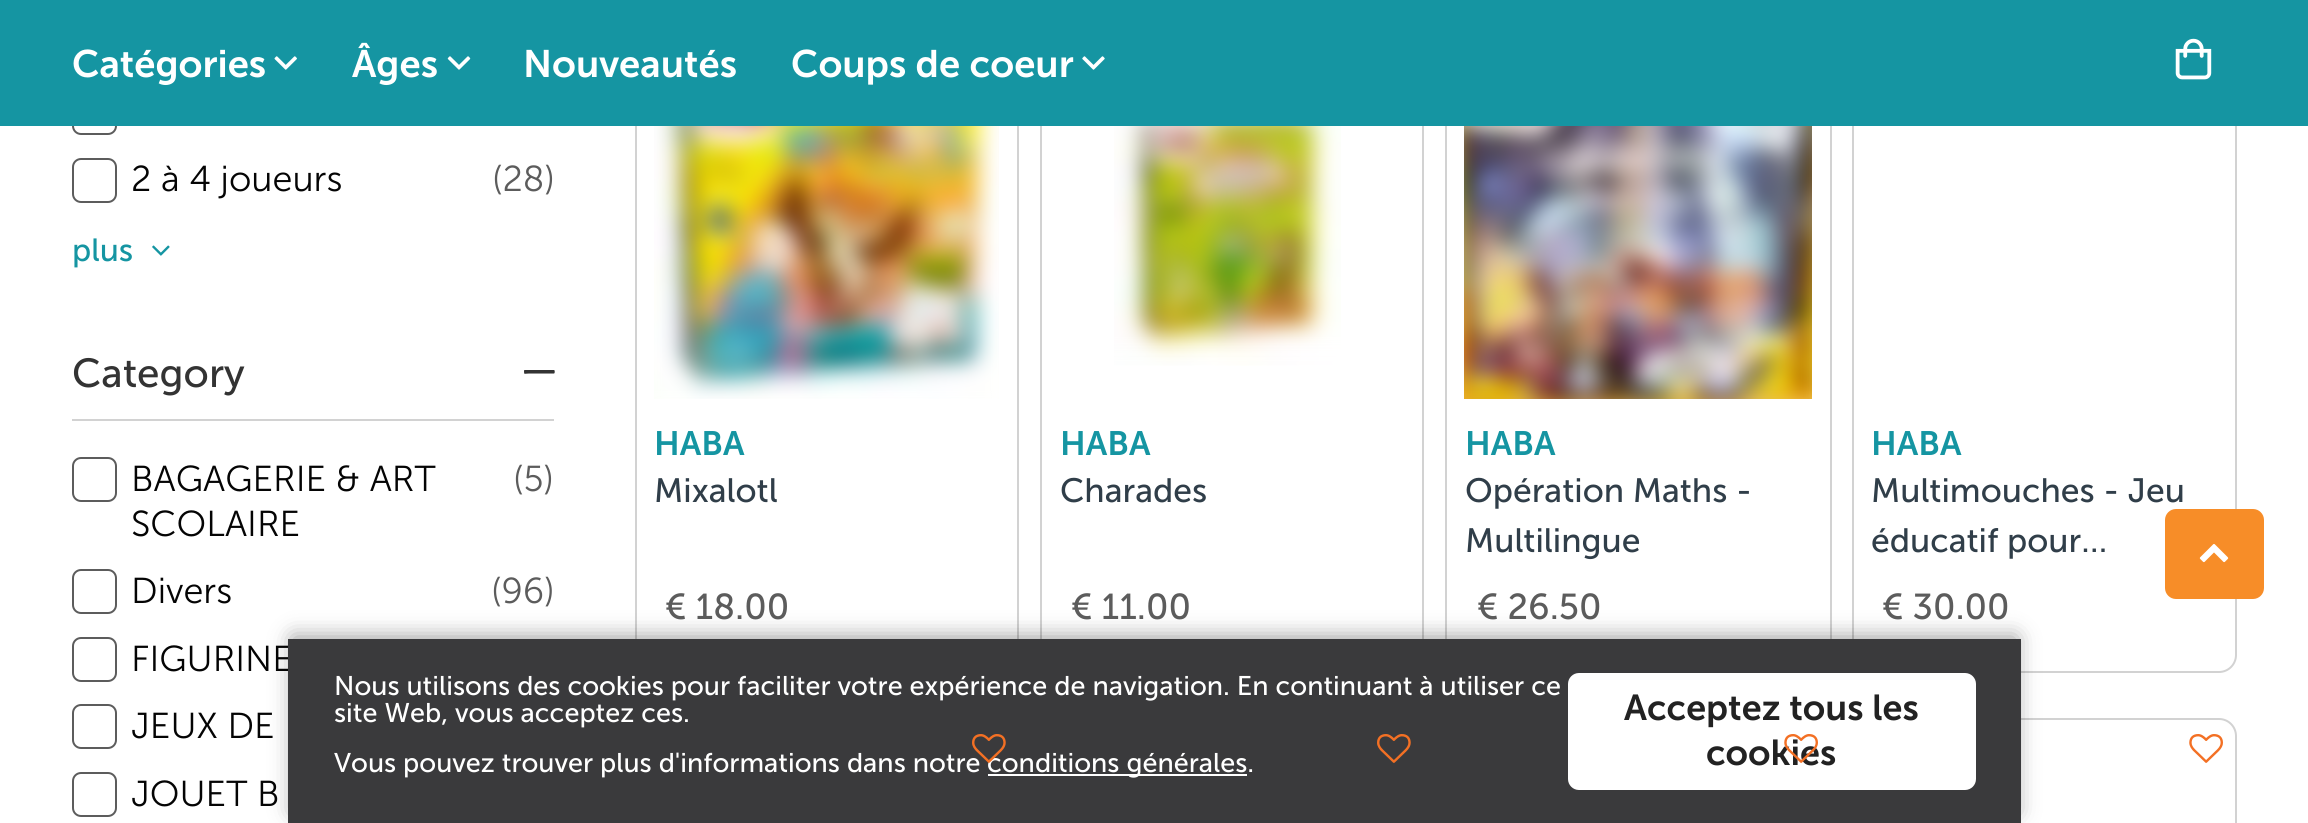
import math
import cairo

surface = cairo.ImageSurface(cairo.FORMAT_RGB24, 2308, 823)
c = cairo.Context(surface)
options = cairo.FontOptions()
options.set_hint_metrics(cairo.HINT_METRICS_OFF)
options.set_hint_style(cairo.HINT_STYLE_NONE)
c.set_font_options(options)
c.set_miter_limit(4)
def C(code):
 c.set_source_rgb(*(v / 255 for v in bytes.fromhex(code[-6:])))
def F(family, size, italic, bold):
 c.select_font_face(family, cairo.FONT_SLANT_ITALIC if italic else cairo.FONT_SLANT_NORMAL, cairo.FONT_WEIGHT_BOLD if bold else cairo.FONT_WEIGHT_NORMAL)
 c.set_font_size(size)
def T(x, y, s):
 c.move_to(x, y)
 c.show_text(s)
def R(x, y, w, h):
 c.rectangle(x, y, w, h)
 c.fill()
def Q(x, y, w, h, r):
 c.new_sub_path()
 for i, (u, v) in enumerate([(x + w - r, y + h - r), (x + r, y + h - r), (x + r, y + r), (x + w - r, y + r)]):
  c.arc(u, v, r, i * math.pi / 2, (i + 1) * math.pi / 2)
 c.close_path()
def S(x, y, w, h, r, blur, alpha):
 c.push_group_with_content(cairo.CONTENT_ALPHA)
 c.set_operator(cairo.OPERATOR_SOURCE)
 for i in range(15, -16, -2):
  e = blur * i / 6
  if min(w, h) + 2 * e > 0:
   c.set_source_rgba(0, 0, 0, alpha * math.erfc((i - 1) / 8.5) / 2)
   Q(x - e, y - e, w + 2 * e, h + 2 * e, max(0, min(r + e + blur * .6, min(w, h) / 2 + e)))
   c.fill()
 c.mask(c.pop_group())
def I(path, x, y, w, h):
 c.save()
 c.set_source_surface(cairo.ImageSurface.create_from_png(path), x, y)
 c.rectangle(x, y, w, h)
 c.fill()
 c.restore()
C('ffffff')
c.paint()
Q(73,91,43,43,8)
C('5c5c5c')
c.stroke()
c.rectangle(636,35,382,637)
C('d2d2d2')
c.stroke()
c.rectangle(1041,35,382,637)
c.stroke()
c.rectangle(1446,35,385,637)
c.stroke()
Q(1853,35,383,637,17)
c.stroke()
C('1595a2')
R(0,0,2308,126)
F('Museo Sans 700 SemiBold',38.25,0,0)
C('ffffff')
T(72,77,'Catégories')
I('1.png',274,56,23,14)
T(352,77,'Âges')
I('2.png',447,56,24,14)
T(523,77,'Nouveautés')
T(791,77,'Coups de coeur')
I('3.png',1082,56,23,14)
I('4.png',2175,38,37,42)
Q(73,159,43,43,8)
C('5c5c5c')
c.stroke()
F('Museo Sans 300 Light',36,0,0)
C('040404')
T(131,191,'2 à 4 joueurs')
C('5c5c5c')
T(492,191,'(28)')
F('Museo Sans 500',32,0,0)
C('1595a2')
T(72,261,'plus')
I('5.png',152,245,18,11)
F('Museo Sans 500',40.5,0,0)
C('333333')
T(72,387,'Category')
c.new_path()
c.move_to(554,370)
c.curve_to(555,370,555,373.5,554,373.5)
c.line_to(529.5,373.5)
c.curve_to(524.5,373.5,524,375,524,371.5)
c.curve_to(524,371,524,370,524.5,370)
c.close_path()
c.fill()
C('d2d2d2')
R(72,419,482,2)
Q(73,458,43,43,8)
C('5c5c5c')
c.stroke()
F('Museo Sans 300 Light',36,0,0)
C('040404')
T(131,491,'BAGAGERIE & ART')
T(131,536,'SCOLAIRE')
C('5c5c5c')
T(513,491,'(5)')
Q(73,570,43,43,8)
c.stroke()
C('040404')
T(131,603,'Divers')
C('5c5c5c')
T(491,603,'(96)')
Q(73,638,43,43,8)
c.stroke()
C('040404')
T(131,671,'FIGURINE')
Q(73,705,43,43,8)
C('5c5c5c')
c.stroke()
C('040404')
T(131,738,'JEUX DE')
Q(73,773,43,43,8)
C('5c5c5c')
c.stroke()
C('040404')
T(131,806,'JOUET B')
I('6.png',654,126,345,273)
F('Museo Sans 700 SemiBold',33.75,0,0)
C('1595a2')
T(654,455,'HABA')
F('Museo Sans 500',33.75,0,0)
C('303e49')
T(654,502,'Mixalotl')
F('Museo Sans 500',36,0,0)
C('5c5c5c')
T(665,619,'€ 18.00')
I('7.png',1114,126,227,240)
F('Museo Sans 700 SemiBold',33.75,0,0)
C('1595a2')
T(1060,455,'HABA')
F('Museo Sans 500',33.75,0,0)
C('303e49')
T(1060,502,'Charades')
F('Museo Sans 500',36,0,0)
C('5c5c5c')
T(1071,619,'€ 11.00')
I('8.png',1464,126,348,273)
F('Museo Sans 700 SemiBold',33.75,0,0)
C('1595a2')
T(1465,455,'HABA')
F('Museo Sans 500',33.75,0,0)
C('303e49')
T(1465,502,'Opération Maths -')
T(1465,552,'Multilingue')
F('Museo Sans 500',36,0,0)
C('5c5c5c')
T(1477,619,'€ 26.50')
F('Museo Sans 700 SemiBold',33.75,0,0)
C('1595a2')
T(1871,455,'HABA')
F('Museo Sans 500',33.75,0,0)
C('303e49')
T(1871,502,'Multimouches - Jeu')
T(1871,552,'éducatif pour…')
F('Museo Sans 500',36,0,0)
C('5c5c5c')
T(1882,619,'€ 30.00')
Q(1853,719,383,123,17)
C('d2d2d2')
c.stroke()
C('000000')
S(293,637,1723,175,0,11,.4)
C('3a3a3c')
R(288,639,1733,184)
F('Museo Sans 500',27,0,0)
C('ffffff')
T(334,772,'Vous pouvez trouver plus d\'informations dans notre')
R(988,774,259,2)
T(987,772,'conditions générales.')
I('9.png',972,734,34,29)
I('10.png',1377,734,34,29)
Q(1568,673,408,117,11)
c.fill()
F('Museo Sans 700 SemiBold',36,0,0)
C('222222')
T(1706,765,'cookies')
I('11.png',1784,734,34,29)
I('12.png',2189,734,34,29)
C('f78d28')
Q(2165,509,99,90,11)
c.fill()
I('13.png',2199,544,30,19)
F('Museo Sans 500',27,0,0)
C('ffffff')
T(334,695,'Nous utilisons des cookies pour faciliter votre expérience de navigation. En continuant à utiliser ce')
T(334,722,'site Web, vous acceptez ces.')
F('Museo Sans 700 SemiBold',36,0,0)
C('222222')
T(1624,720,'Acceptez tous les')
surface.write_to_png('o.png')
